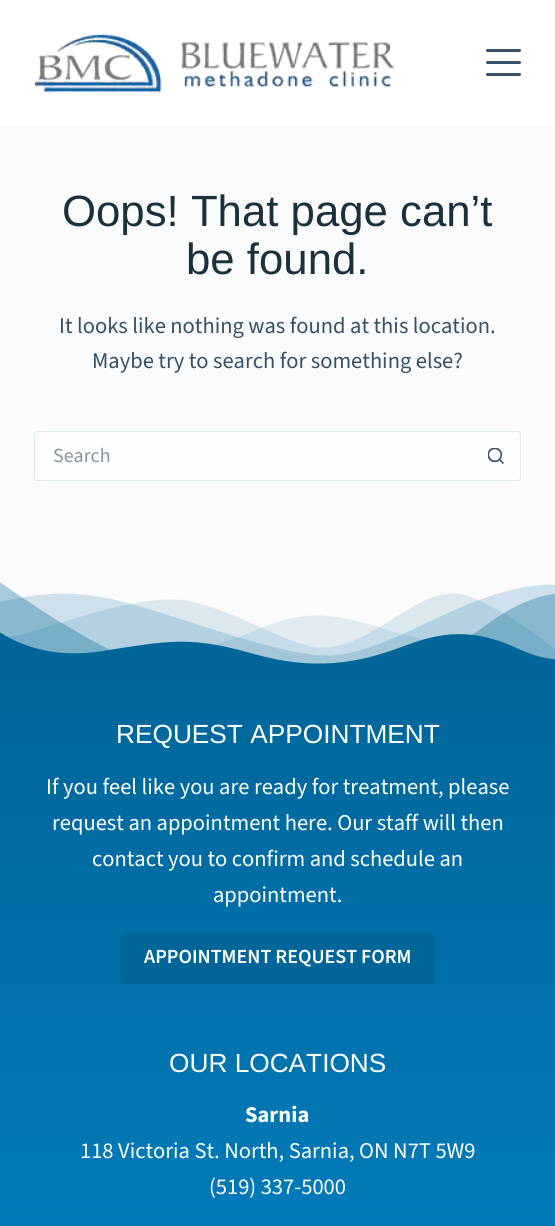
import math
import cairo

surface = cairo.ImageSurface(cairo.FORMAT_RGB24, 555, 1226)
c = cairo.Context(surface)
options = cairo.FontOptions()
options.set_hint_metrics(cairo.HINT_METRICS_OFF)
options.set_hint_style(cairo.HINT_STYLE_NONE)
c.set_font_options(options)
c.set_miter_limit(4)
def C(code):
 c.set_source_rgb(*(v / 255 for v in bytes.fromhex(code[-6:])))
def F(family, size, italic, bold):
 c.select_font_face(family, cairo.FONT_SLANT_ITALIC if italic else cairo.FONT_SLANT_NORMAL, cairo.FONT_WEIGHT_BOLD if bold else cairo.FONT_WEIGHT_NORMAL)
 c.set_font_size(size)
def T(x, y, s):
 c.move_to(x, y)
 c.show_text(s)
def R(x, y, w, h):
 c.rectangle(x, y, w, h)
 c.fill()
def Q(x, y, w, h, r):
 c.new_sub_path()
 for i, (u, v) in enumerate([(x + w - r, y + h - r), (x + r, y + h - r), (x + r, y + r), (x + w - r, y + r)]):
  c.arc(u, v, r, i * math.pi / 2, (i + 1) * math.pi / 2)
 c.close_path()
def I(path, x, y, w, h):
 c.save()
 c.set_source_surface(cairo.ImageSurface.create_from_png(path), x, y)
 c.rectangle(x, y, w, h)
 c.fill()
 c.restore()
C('fafbfc')
c.paint()
C('ffffff')
R(0,0,555,125)
I('1.png',34,33,360,60)
C('355166')
Q(486,49,35,3,1.5)
c.fill()
Q(486,61,35,3,1.5)
c.fill()
Q(486,73,35,3,1.5)
c.fill()
F('Liberation Sans',43.75,0,0)
C('19303d')
T(62,226,'Oops! That page can’t')
T(186,274,'be found.')
F('Source Sans 3',22.5,0,0)
C('355166')
T(59,333,'It looks like nothing was found at this location.')
T(92,368,'Maybe try to search for something else?')
C('fefefe')
c.new_path()
c.move_to(38,431)
c.line_to(471,431)
c.line_to(471,481)
c.line_to(38,481)
c.curve_to(36,481,34,479,34,477)
c.line_to(34,435)
c.curve_to(34,433,36,431,38,431)
c.close_path()
c.fill()
C('e1eaed')
c.set_fill_rule(cairo.FILL_RULE_EVEN_ODD)
c.new_path()
c.move_to(38,431)
c.line_to(471,431)
c.line_to(471,481)
c.line_to(38,481)
c.curve_to(35,481,34,480,34,478)
c.line_to(34,435)
c.curve_to(34,433,35,431,38,431)
c.close_path()
c.move_to(38,432)
c.line_to(471,432)
c.line_to(471,480)
c.line_to(38,480)
c.curve_to(36,480,35,479,35,478)
c.line_to(35,435)
c.curve_to(35,434,36,432,38,432)
c.close_path()
c.fill()
F('Source Sans 3',20,0,0)
C('8596a3')
T(53,462,'Search')
C('fefefe')
c.new_path()
c.move_to(471,431)
c.line_to(517,431)
c.curve_to(519,431,521,433,521,435)
c.line_to(521,477)
c.curve_to(521,479,519,481,517,481)
c.line_to(471,481)
c.close_path()
c.fill()
C('e1eaed')
c.new_path()
c.move_to(471,431)
c.line_to(518,431)
c.curve_to(520,431,521,433,521,435)
c.line_to(521,478)
c.curve_to(521,480,520,481,518,481)
c.line_to(471,481)
c.close_path()
c.move_to(471,432)
c.line_to(518,432)
c.curve_to(519,432,520,434,520,435)
c.line_to(520,478)
c.curve_to(520,479,519,480,518,480)
c.line_to(471,480)
c.close_path()
c.fill()
I('2.png',488,448,16,16)
I('3.png',0,582,555,87)
gradient = cairo.LinearGradient(278,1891,278,669)
gradient.add_color_stop_rgba(0,0.016,0.573,0.878,1)
gradient.add_color_stop_rgba(1,0,0.4,0.6,1)
c.set_source(gradient)
R(0,669,555,557)
F('Liberation Sans',26.25,0,0)
C('ffffff')
T(116,743,'REQUEST APPOINTMENT')
F('Source Sans 3',22.5,0,0)
T(46,794,'If you feel like you are ready for treatment, please')
T(52,830,'request an appointment here. Our staff will then')
T(92,866,'contact you to confirm and schedule an')
T(213,902,'appointment.')
C('006699')
Q(120,933,315,51,6)
c.fill()
F('Source Sans 3 SemiBold',20,0,0)
C('ffffff')
T(144,963,'APPOINTMENT REQUEST FORM')
F('Liberation Sans',26.25,0,0)
T(169,1072,'OUR LOCATIONS')
F('Source Sans 3',22.5,0,1)
T(245,1122,'Sarnia')
F('Source Sans 3',22.5,0,0)
T(80,1158,'118 Victoria St. North, Sarnia, ON N7T 5W9')
T(209,1194,'(519) 337-5000')
surface.write_to_png('o.png')
